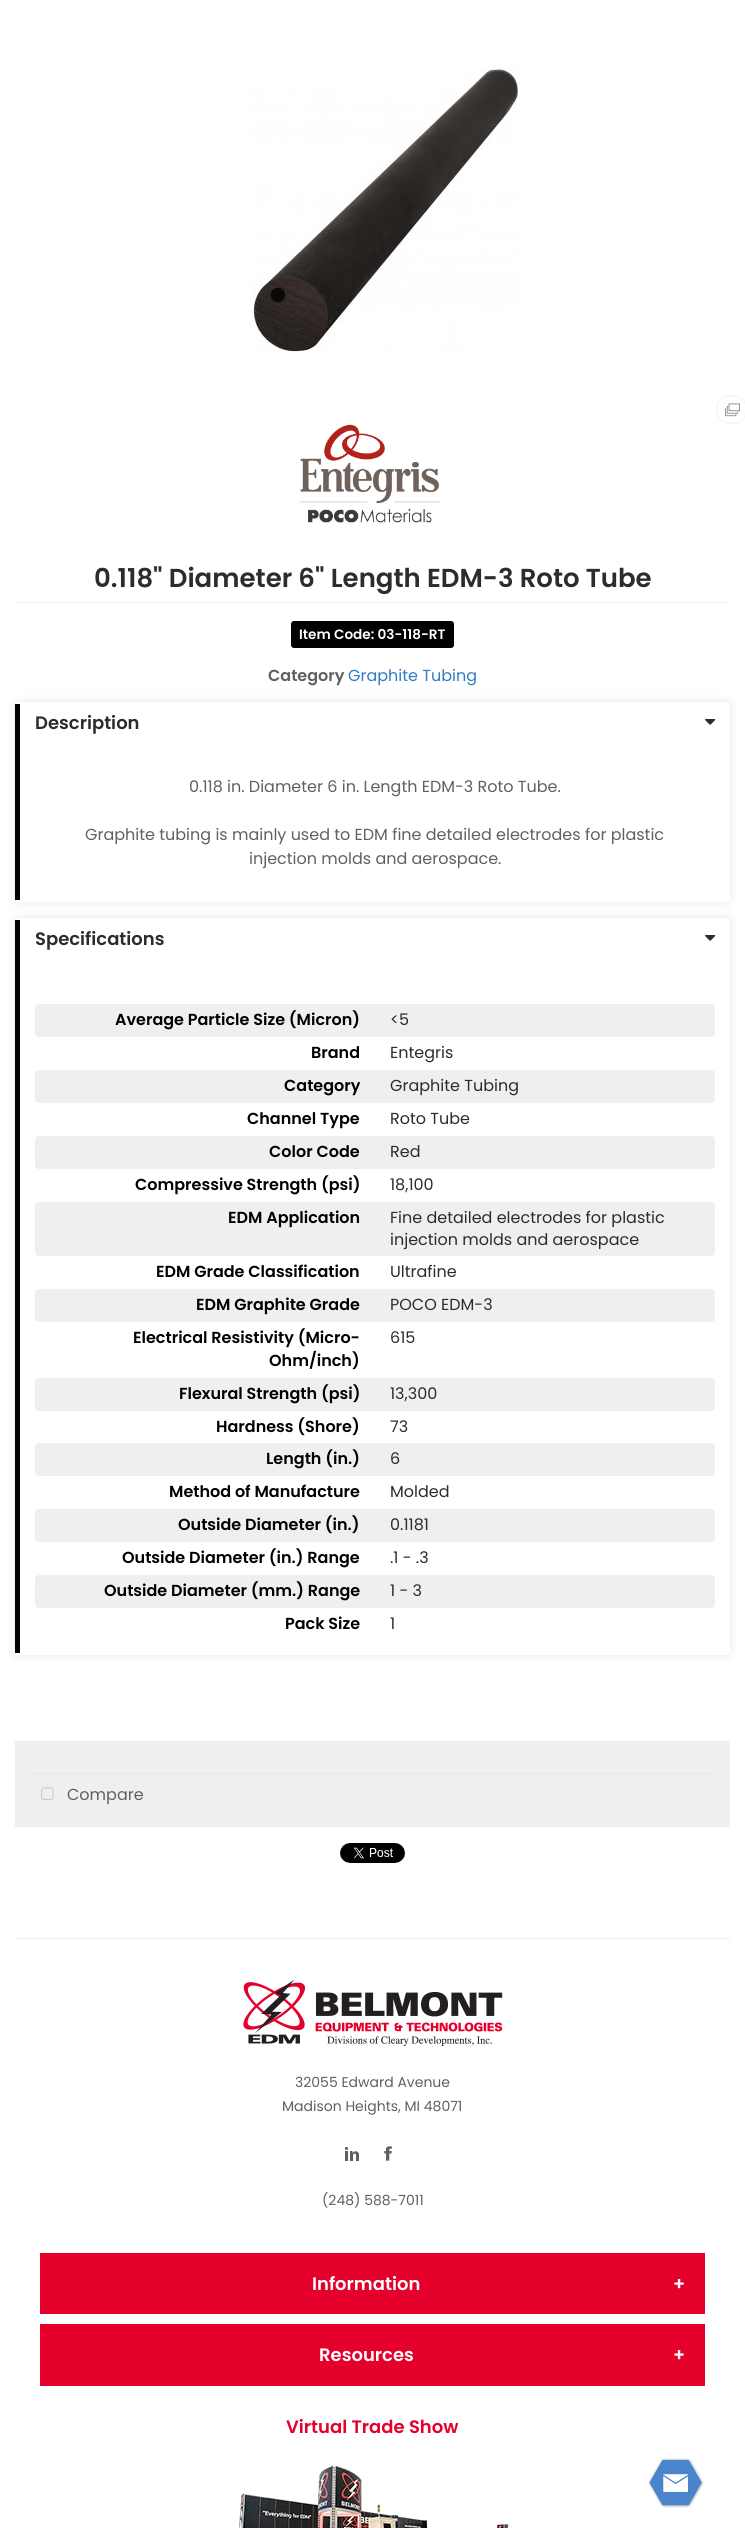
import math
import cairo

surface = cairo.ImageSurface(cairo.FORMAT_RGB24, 745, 2528)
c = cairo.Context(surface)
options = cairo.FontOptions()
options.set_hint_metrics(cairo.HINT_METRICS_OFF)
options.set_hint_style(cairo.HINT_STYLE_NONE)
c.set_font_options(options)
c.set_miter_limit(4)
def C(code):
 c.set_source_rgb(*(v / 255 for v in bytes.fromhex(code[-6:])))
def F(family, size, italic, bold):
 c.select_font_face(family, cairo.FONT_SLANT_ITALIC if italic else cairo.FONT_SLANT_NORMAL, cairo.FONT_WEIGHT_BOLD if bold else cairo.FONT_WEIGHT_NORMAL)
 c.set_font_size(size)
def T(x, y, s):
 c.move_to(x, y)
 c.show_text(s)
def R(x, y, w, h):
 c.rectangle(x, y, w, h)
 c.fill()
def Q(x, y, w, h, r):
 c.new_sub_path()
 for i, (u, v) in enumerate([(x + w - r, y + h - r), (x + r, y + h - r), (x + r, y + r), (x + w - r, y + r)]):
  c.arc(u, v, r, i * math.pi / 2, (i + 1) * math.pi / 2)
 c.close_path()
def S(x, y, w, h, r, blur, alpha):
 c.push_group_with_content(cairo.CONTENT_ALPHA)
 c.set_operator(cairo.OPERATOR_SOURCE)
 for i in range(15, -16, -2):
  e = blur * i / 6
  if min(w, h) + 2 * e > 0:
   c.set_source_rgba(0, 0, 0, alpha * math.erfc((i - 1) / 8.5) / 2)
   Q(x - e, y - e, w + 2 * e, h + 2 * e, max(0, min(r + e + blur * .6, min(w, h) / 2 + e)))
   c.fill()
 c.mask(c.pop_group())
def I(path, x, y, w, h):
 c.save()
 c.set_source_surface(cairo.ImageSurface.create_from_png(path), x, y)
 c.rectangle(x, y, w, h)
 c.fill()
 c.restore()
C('ffffff')
c.paint()
I('1.png',251,67,272,287)
c.save()
c.set_fill_rule(cairo.FILL_RULE_EVEN_ODD)
c.new_path()
c.move_to(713,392)
c.line_to(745,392)
c.line_to(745,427)
c.line_to(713,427)
c.close_path()
c.move_to(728,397)
c.line_to(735,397)
c.curve_to(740.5,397,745,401.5,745,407)
c.line_to(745,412)
c.curve_to(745,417.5,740.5,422,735,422)
c.line_to(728,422)
c.curve_to(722.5,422,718,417.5,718,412)
c.line_to(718,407)
c.curve_to(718,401.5,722.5,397,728,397)
c.close_path()
c.clip()
C('000000')
S(717,396,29,27,11,1,.07)
c.restore()
C('ffffff')
Q(718,397,27,25,10)
c.fill()
I('2.png',725,403,15,14)
C('efefef')
R(15,602,715,1)
I('3.png',299,424,141,99)
F('Poppins SemiBold',26,0,0)
C('2c2c2c')
T(94,587,'0.118" Diameter 6" Length EDM-3 Roto Tube')
C('000000')
Q(291,621,163,27,3)
c.fill()
F('Poppins SemiBold',13.6,0,0)
C('ffffff')
T(299,639,'Item Code: 03-118-RT')
F('Poppins SemiBold',16,0,0)
C('606060')
T(268,681,'Category')
F('Poppins',16,0,0)
C('317cc5')
T(348,681,'Graphite Tubing')
c.save()
c.set_fill_rule(cairo.FILL_RULE_EVEN_ODD)
c.new_path()
c.move_to(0,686)
c.line_to(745,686)
c.line_to(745,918)
c.line_to(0,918)
c.close_path()
c.move_to(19,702)
c.line_to(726,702)
c.curve_to(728,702,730,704,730,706)
c.line_to(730,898)
c.curve_to(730,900,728,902,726,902)
c.line_to(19,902)
c.curve_to(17,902,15,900,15,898)
c.line_to(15,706)
c.curve_to(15,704,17,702,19,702)
c.close_path()
c.clip()
C('000000')
S(15,702,715,200,4,5,.1)
c.restore()
C('000000')
R(15,704,5,196)
F('Poppins SemiBold',18,0,0)
C('2c2c2c')
T(35,729,'Description')
I('4.png',705,719,11,6)
F('Poppins',16,0,0)
C('606060')
T(189,792,'0.118 in. Diameter 6 in. Length EDM-3 Roto Tube.')
T(85,840,'Graphite tubing is mainly used to EDM fine detailed electrodes for plastic')
T(249,864,'injection molds and aerospace.')
c.save()
c.set_fill_rule(cairo.FILL_RULE_EVEN_ODD)
c.new_path()
c.move_to(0,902)
c.line_to(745,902)
c.line_to(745,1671)
c.line_to(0,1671)
c.close_path()
c.move_to(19,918)
c.line_to(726,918)
c.curve_to(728,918,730,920,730,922)
c.line_to(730,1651)
c.curve_to(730,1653,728,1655,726,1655)
c.line_to(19,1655)
c.curve_to(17,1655,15,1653,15,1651)
c.line_to(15,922)
c.curve_to(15,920,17,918,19,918)
c.close_path()
c.clip()
C('000000')
S(15,918,715,737,4,5,.1)
c.restore()
C('000000')
R(15,920,5,733)
F('Poppins SemiBold',18,0,0)
C('2c2c2c')
T(35,945,'Specifications')
I('4.png',705,935,11,6)
C('efefef')
Q(35,1004,680,33,4)
c.fill()
F('Poppins SemiBold',16,0,0)
C('000000')
T(115,1025,'Average Particle Size (Micron)')
F('Poppins',16,0,0)
C('2c2c2c')
T(390,1025,'<5')
F('Poppins SemiBold',16,0,0)
C('000000')
T(311,1058,'Brand')
F('Poppins',16,0,0)
C('2c2c2c')
T(390,1058,'Entegris')
C('efefef')
Q(35,1070,680,33,4)
c.fill()
F('Poppins SemiBold',16,0,0)
C('000000')
T(284,1091,'Category')
F('Poppins',16,0,0)
C('2c2c2c')
T(390,1091,'Graphite Tubing')
F('Poppins SemiBold',16,0,0)
C('000000')
T(247,1124,'Channel Type')
F('Poppins',16,0,0)
C('2c2c2c')
T(390,1124,'Roto Tube')
C('efefef')
Q(35,1136,680,33,4)
c.fill()
F('Poppins SemiBold',16,0,0)
C('000000')
T(269,1157,'Color Code')
F('Poppins',16,0,0)
C('2c2c2c')
T(390,1157,'Red')
F('Poppins SemiBold',16,0,0)
C('000000')
T(135,1190,'Compressive Strength (psi)')
F('Poppins',16,0,0)
C('2c2c2c')
T(390,1190,'18,100')
C('efefef')
Q(35,1202,680,54,4)
c.fill()
F('Poppins SemiBold',16,0,0)
C('000000')
T(228,1223,'EDM Application')
F('Poppins',16,0,0)
C('2c2c2c')
T(390,1223,'Fine detailed electrodes for plastic')
T(390,1245,'injection molds and aerospace')
F('Poppins SemiBold',16,0,0)
C('000000')
T(156,1277,'EDM Grade Classification')
F('Poppins',16,0,0)
C('2c2c2c')
T(390,1277,'Ultrafine')
C('efefef')
Q(35,1289,680,33,4)
c.fill()
F('Poppins SemiBold',16,0,0)
C('000000')
T(196,1310,'EDM Graphite Grade')
F('Poppins',16,0,0)
C('2c2c2c')
T(390,1310,'POCO EDM-3')
F('Poppins SemiBold',16,0,0)
C('000000')
T(133,1343,'Electrical Resistivity (Micro-')
T(269,1366,'Ohm/inch)')
F('Poppins',16,0,0)
C('2c2c2c')
T(390,1343,'615')
C('efefef')
Q(35,1378,680,33,4)
c.fill()
F('Poppins SemiBold',16,0,0)
C('000000')
T(179,1399,'Flexural Strength (psi)')
F('Poppins',16,0,0)
C('2c2c2c')
T(390,1399,'13,300')
F('Poppins SemiBold',16,0,0)
C('000000')
T(216,1432,'Hardness (Shore)')
F('Poppins',16,0,0)
C('2c2c2c')
T(390,1432,'73')
C('efefef')
Q(35,1443,680,33,4)
c.fill()
F('Poppins SemiBold',16,0,0)
C('000000')
T(266,1464,'Length (in.)')
F('Poppins',16,0,0)
C('2c2c2c')
T(390,1464,'6')
F('Poppins SemiBold',16,0,0)
C('000000')
T(169,1497,'Method of Manufacture')
F('Poppins',16,0,0)
C('2c2c2c')
T(390,1497,'Molded')
C('efefef')
Q(35,1509,680,33,4)
c.fill()
F('Poppins SemiBold',16,0,0)
C('000000')
T(178,1530,'Outside Diameter (in.)')
F('Poppins',16,0,0)
C('2c2c2c')
T(390,1530,'0.1181')
F('Poppins SemiBold',16,0,0)
C('000000')
T(122,1563,'Outside Diameter (in.) Range')
F('Poppins',16,0,0)
C('2c2c2c')
T(390,1563,'.1 - .3')
C('efefef')
Q(35,1575,680,33,4)
c.fill()
F('Poppins SemiBold',16,0,0)
C('000000')
T(104,1596,'Outside Diameter (mm.) Range')
F('Poppins',16,0,0)
C('2c2c2c')
T(390,1596,'1 - 3')
F('Poppins SemiBold',16,0,0)
C('000000')
T(285,1629,'Pack Size')
F('Poppins',16,0,0)
C('2c2c2c')
T(390,1629,'1')
C('efefef')
R(15,1741,715,86)
C('e6e6e6')
R(31,1773,683,1)
I('5.png',41,1787,13,13)
C('606060')
T(67,1800,'Compare')
I('6.png',340,1843,65,20)
C('ececec')
R(15,1938,715,1)
I('7.png',243,1979,260,67)
F('Poppins',14,0,0)
C('606060')
T(295,2087,'32055 Edward Avenue')
T(282,2111,'Madison Heights, MI 48071')
I('8.png',344,2147,15,14)
I('9.png',384,2146,8,15)
T(322,2205,'(248) 588-7011')
C('e4002b')
R(40,2253,665,61)
F('Poppins SemiBold',18,0,0)
C('ffffff')
T(312,2290,'Information')
T(673,2290,'+')
C('e4002b')
R(40,2324,665,62)
C('ffffff')
T(319,2361,'Resources')
T(673,2361,'+')
C('e4002b')
T(286,2433,'Virtual Trade Show')
I('10.png',239,2465,270,63)
I('11.png',648,2458,56,50)
surface.write_to_png('o.png')
